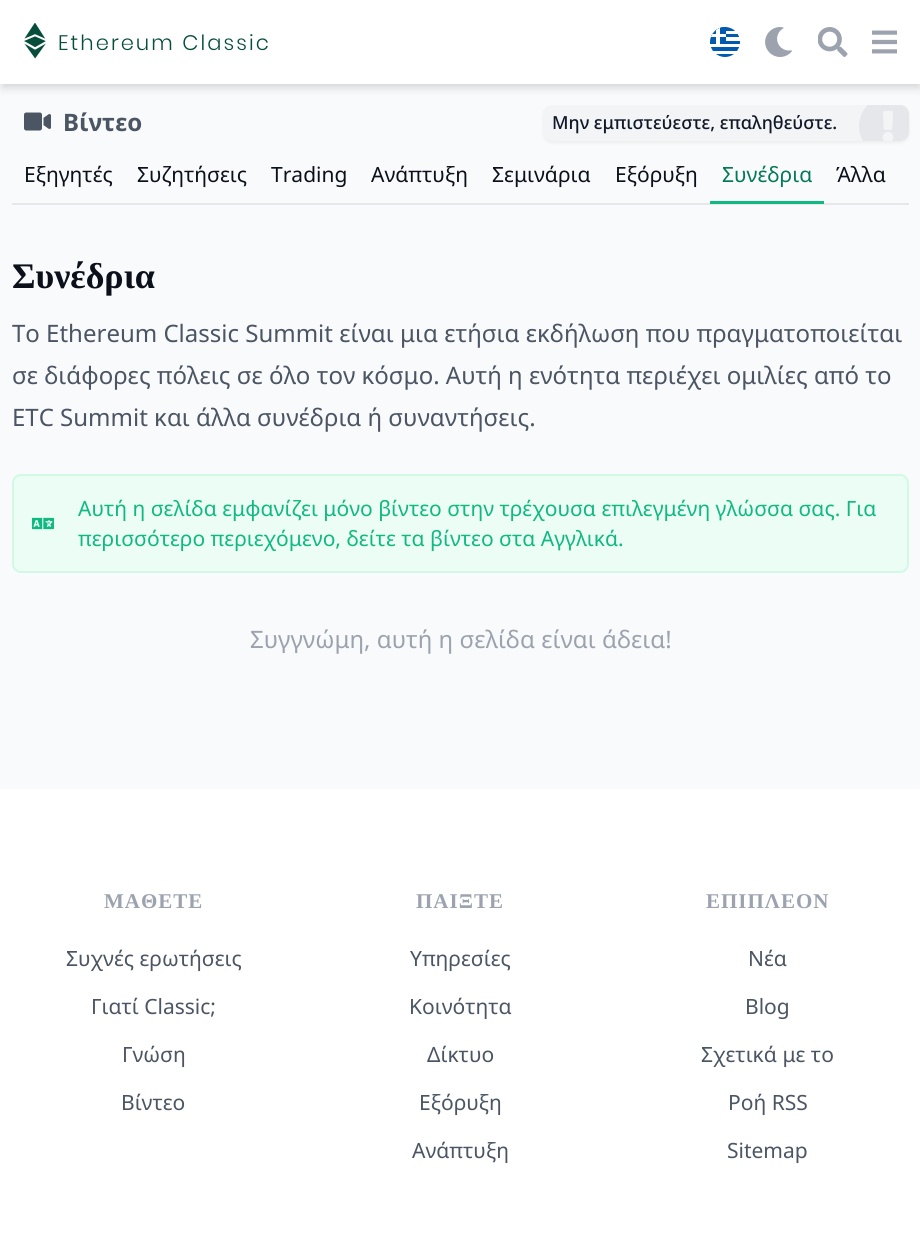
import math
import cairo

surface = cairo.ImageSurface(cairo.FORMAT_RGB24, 920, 1247)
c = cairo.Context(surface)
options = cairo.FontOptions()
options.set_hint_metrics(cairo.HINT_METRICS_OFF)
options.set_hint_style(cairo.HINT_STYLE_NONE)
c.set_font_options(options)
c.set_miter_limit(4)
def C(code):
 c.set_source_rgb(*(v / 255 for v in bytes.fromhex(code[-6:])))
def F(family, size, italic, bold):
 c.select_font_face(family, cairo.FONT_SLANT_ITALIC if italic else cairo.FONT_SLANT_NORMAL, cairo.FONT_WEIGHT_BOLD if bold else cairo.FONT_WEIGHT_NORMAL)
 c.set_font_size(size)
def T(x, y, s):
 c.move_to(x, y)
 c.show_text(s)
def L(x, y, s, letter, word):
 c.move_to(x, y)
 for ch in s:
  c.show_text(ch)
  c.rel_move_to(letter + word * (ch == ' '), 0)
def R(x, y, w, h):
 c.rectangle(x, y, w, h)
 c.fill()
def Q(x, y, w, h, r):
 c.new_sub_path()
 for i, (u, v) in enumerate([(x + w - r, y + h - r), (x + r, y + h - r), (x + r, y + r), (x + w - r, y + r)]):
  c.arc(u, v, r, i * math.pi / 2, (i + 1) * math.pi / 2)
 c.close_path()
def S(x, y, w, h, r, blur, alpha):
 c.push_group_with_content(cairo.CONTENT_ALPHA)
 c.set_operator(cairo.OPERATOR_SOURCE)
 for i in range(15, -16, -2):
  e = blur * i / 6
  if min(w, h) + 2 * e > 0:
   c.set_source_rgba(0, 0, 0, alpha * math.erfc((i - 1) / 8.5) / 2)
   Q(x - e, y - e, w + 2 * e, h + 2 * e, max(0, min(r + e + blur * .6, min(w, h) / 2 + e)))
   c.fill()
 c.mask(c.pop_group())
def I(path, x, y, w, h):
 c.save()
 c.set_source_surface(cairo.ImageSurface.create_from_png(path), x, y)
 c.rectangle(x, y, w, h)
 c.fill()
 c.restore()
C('f9fafb')
c.paint()
C('000000')
S(2,5,918,81,0,3,.06)
S(2,8,918,81,0,4.5,.1)
C('ffffff')
R(0,0,920,84)
I('1.png',24,23,22,36)
F('Poppins Light',21,0,0)
C('064e3b')
L(58,50,'Ethereum Classic',2.1,0)
I('2.png',710,27,30,30)
I('3.png',765,27,27,30)
I('4.png',818,27,30,30)
I('5.png',872,30,25,24)
C('e5e7eb')
R(12,203,897,2)
I('6.png',24,112,27,19)
F('Noto Sans',24,0,1)
C('4b5563')
T(63,131,'Βίντεο')
C('000000')
S(543,107,366,36,9,1.5,.05)
C('f3f4f6')
Q(543,105,366,36,9)
c.fill()
F('Noto Sans Medium',18,0,0)
C('111827')
T(552,129,'Μην εμπιστεύεστε, επαληθεύστε.')
I('7.png',859,105,50,36)
F('Noto Sans',21,0,0)
C('0b101a')
T(24,182,'Εξηγητές')
T(137,182,'Συζητήσεις')
T(271,182,'Trading')
T(371,182,'Ανάπτυξη')
T(492,182,'Σεμινάρια')
T(615,182,'Εξόρυξη')
C('10b981')
R(710,201,114,3)
C('047857')
T(722,182,'Συνέδρια')
C('0b101a')
T(836,182,'Άλλα')
F('Liberation Serif',36,0,1)
T(12,288,'Συνέδρια')
F('Noto Sans',24,0,0)
C('4b5563')
T(12,342,'Το Ethereum Classic Summit είναι μια ετήσια εκδήλωση που πραγματοποιείται')
T(12,384,'σε διάφορες πόλεις σε όλο τον κόσμο. Αυτή η ενότητα περιέχει ομιλίες από το')
T(12,426,'ETC Summit και άλλα συνέδρια ή συναντήσεις.')
C('ecfdf5')
Q(13,475,895,97,8)
c.fill_preserve()
C('d1fae5')
c.stroke()
I('8.png',32,517,22,13)
F('Noto Sans',21,0,0)
C('10b981')
T(78,516,'Αυτή η σελίδα εμφανίζει μόνο βίντεο στην τρέχουσα επιλεγμένη γλώσσα σας. Για')
T(78,546,'περισσότερο περιεχόμενο, δείτε τα βίντεο στα Αγγλικά.')
F('Noto Sans',24,0,0)
C('9ca3af')
T(250,648,'Συγγνώμη, αυτή η σελίδα είναι άδεια!')
C('ffffff')
R(0,789,920,458)
F('Liberation Serif',21,0,1)
C('9ca3af')
L(104,908,'ΜΑΘΕΤΕ',1,0)
F('Noto Sans',21,0,0)
C('4b5563')
T(66,966,'Συχνές ερωτήσεις')
T(91,1014,'Γιατί Classic;')
T(122,1062,'Γνώση')
T(121,1110,'Βίντεο')
F('Liberation Serif',21,0,1)
C('9ca3af')
L(416,908,'ΠΑΙΞΤΕ',1,0)
F('Noto Sans',21,0,0)
C('4b5563')
T(410,966,'Υπηρεσίες')
T(409,1014,'Κοινότητα')
T(427,1062,'Δίκτυο')
T(419,1110,'Εξόρυξη')
T(412,1158,'Ανάπτυξη')
F('Liberation Serif',21,0,1)
C('9ca3af')
L(706,908,'ΕΠΙΠΛΕΟΝ',1,0)
F('Noto Sans',21,0,0)
C('4b5563')
T(748,966,'Νέα')
T(745,1014,'Blog')
T(701,1062,'Σχετικά με το')
T(728,1110,'Ροή RSS')
T(727,1158,'Sitemap')
surface.write_to_png('o.png')
